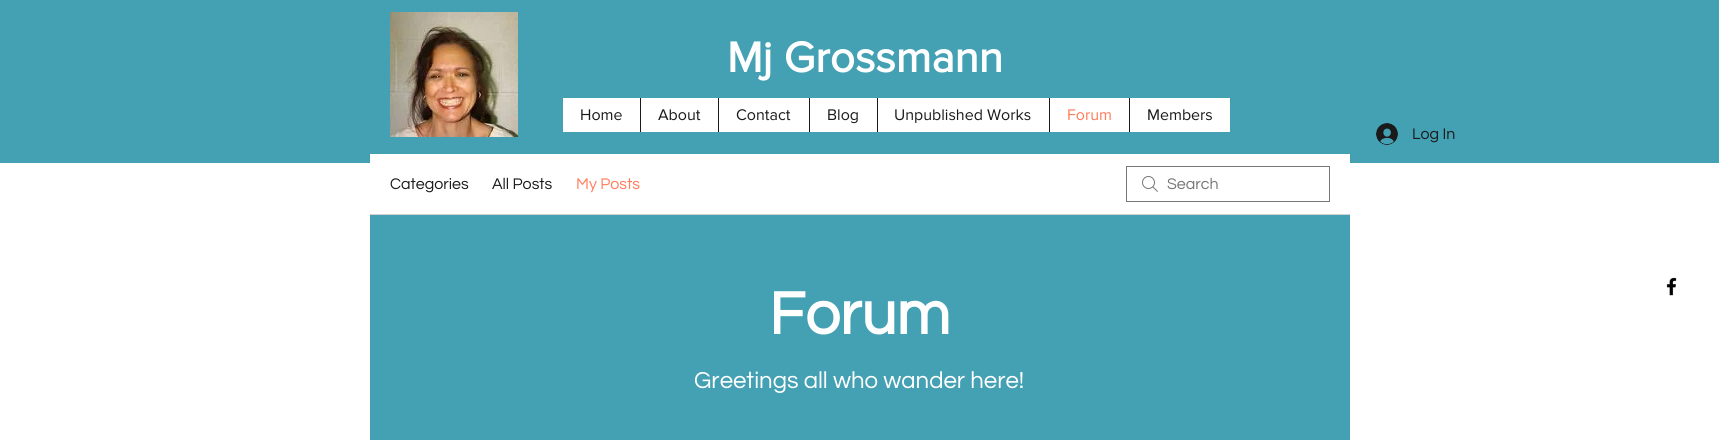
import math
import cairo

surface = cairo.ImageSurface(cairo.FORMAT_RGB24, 1719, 440)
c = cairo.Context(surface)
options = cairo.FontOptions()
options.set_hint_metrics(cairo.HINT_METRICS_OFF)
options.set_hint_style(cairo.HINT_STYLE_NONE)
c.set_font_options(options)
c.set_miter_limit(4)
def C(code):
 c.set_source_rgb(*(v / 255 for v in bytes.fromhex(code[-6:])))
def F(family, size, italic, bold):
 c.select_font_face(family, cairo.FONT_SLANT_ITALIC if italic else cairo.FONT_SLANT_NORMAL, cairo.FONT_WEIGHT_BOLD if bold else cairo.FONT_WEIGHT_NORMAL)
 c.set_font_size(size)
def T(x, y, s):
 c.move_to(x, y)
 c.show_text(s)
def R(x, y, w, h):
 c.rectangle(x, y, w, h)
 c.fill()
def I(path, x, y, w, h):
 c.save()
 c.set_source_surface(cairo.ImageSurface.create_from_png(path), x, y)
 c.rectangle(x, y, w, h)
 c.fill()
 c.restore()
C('ffffff')
c.paint()
C('44a0b3')
R(0,0,1719,163)
I('1.png',390,12,128,125)
F('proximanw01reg',44,0,1)
C('ffffff')
T(727,72,'Mj Grossmann')
R(563,98,667,34)
F('proximanw01reg',16,0,0)
C('1a1a1a')
T(580,120,'Home')
R(640,98,1,34)
T(658,120,'About')
R(718,98,1,34)
T(736,120,'Contact')
R(809,98,1,34)
T(827,120,'Blog')
R(877,98,1,34)
T(894,120,'Unpublished Works')
R(1049,98,1,34)
C('ff7c59')
T(1067,120,'Forum')
C('1a1a1a')
R(1129,98,1,34)
T(1147,120,'Members')
I('2.png',1376,123,22,22)
F('Questrial',16,0,0)
T(1412,139,'Log In')
C('ffffff')
R(370,154,980,9)
C('d1d1d1')
R(370,214,980,1)
C('1a1a1a')
T(390,189,'Categories')
T(492,189,'All Posts')
C('ff7c59')
T(576,189,'My Posts')
I('3.png',1142,176,16,16)
c.rectangle(1126.5,166.5,203,35)
C('767676')
c.set_line_width(1)
c.stroke()
T(1167,189,'Search')
C('44a0b3')
R(370,215,980,225)
F('Questrial',62,0,1)
C('ffffff')
T(769,334,'Forum')
F('Questrial',24,0,0)
T(694,388,'Greetings all who wander here!')
I('4.png',1666,277,11,19)
surface.write_to_png('o.png')
